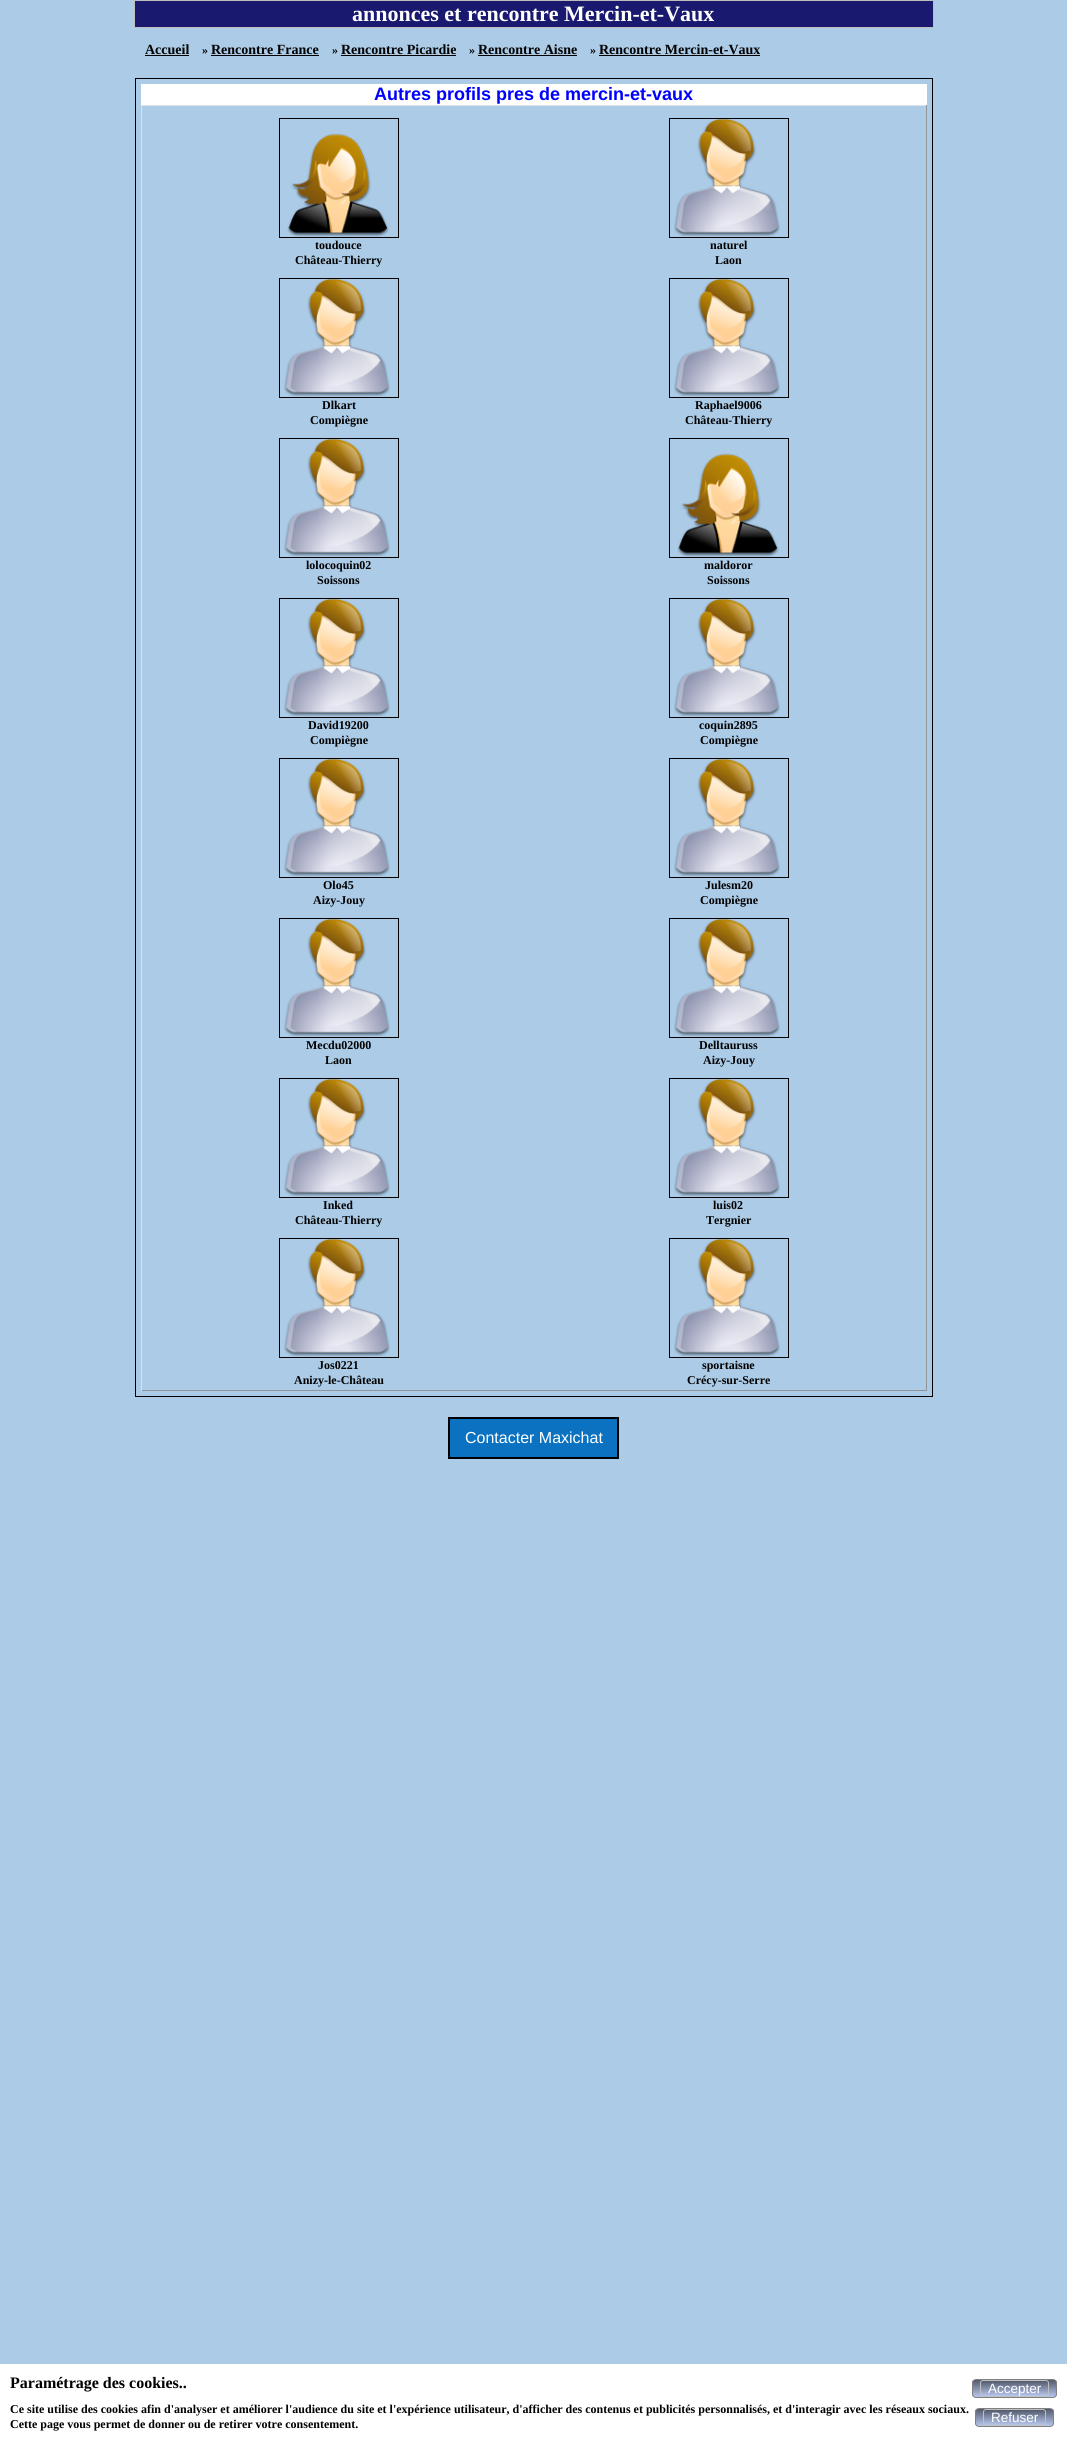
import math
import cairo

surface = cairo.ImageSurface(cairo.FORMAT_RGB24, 1067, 2442)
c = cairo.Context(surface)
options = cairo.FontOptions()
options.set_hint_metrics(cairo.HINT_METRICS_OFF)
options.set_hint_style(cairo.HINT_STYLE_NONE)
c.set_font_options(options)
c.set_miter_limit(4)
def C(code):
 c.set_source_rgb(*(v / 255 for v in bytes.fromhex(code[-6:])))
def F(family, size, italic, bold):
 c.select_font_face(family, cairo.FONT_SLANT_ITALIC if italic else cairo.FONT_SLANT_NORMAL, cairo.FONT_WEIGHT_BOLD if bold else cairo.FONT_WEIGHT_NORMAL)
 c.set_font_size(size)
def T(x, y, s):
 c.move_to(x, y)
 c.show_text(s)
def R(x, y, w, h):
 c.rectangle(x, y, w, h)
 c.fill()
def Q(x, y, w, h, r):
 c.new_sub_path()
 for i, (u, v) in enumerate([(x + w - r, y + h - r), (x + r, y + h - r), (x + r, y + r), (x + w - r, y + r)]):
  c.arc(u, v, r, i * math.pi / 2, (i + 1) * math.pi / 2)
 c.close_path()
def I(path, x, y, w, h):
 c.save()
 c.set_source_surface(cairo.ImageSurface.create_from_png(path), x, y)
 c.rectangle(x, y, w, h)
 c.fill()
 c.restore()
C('abcbe7')
c.paint()
c.rectangle(134.5,.5,799,27)
C('bdbdbd')
c.set_line_width(1)
c.stroke()
C('191970')
R(135,1,798,26)
F('Liberation Serif',22,0,1)
C('ffffff')
T(352,21,'annonces et rencontre Mercin-et-Vaux')
F('Liberation Serif',14,0,1)
C('000000')
T(145,54,'Accueil')
R(145,55,44,1)
F('Liberation Serif',12,0,1)
T(202,54,'»')
F('Liberation Serif',14,0,1)
T(211,54,'Rencontre France')
R(211,55,108,1)
F('Liberation Serif',12,0,1)
T(332,54,'»')
F('Liberation Serif',14,0,1)
T(341,54,'Rencontre Picardie')
R(341,55,115,1)
F('Liberation Serif',12,0,1)
T(469,54,'»')
F('Liberation Serif',14,0,1)
T(478,54,'Rencontre Aisne')
R(478,55,99,1)
F('Liberation Serif',12,0,1)
T(590,54,'»')
F('Liberation Serif',14,0,1)
T(599,54,'Rencontre Mercin-et-Vaux')
R(599,55,161,1)
c.rectangle(135.5,78.5,797,1318)
c.stroke()
C('ffffff')
R(141,84,786,21)
F('Liberation Sans',18,0,1)
C('0000ff')
T(374,100,'Autres profils pres de mercin-et-vaux')
C('dde1e6')
R(141,105,786,1)
C('939699')
R(926,105,1,1286)
R(141,1390,786,1)
C('dde1e6')
R(141,105,1,1286)
c.rectangle(279.5,118.5,119,119)
C('000000')
c.stroke()
I('1.png',287,133,102,104)
F('Liberation Serif',12,0,1)
T(315,249,'toudouce')
T(295,264,'Château-Thierry')
c.rectangle(669.5,118.5,119,119)
c.stroke()
I('2.png',674,119,106,118)
T(710,249,'naturel')
T(715,264,'Laon')
c.rectangle(279.5,278.5,119,119)
c.stroke()
I('2.png',284,279,106,118)
T(322,409,'Dlkart')
T(310,424,'Compiègne')
c.rectangle(669.5,278.5,119,119)
c.stroke()
I('2.png',674,279,106,118)
T(695,409,'Raphael9006')
T(685,424,'Château-Thierry')
c.rectangle(279.5,438.5,119,119)
c.stroke()
I('2.png',284,439,106,118)
T(306,569,'lolocoquin02')
T(317,584,'Soissons')
c.rectangle(669.5,438.5,119,119)
c.stroke()
I('1.png',677,453,102,104)
T(704,569,'maldoror')
T(707,584,'Soissons')
c.rectangle(279.5,598.5,119,119)
c.stroke()
I('2.png',284,599,106,118)
T(308,729,'David19200')
T(310,744,'Compiègne')
c.rectangle(669.5,598.5,119,119)
c.stroke()
I('2.png',674,599,106,118)
T(699,729,'coquin2895')
T(700,744,'Compiègne')
c.rectangle(279.5,758.5,119,119)
c.stroke()
I('2.png',284,759,106,118)
T(323,889,'Olo45')
T(313,904,'Aizy-Jouy')
c.rectangle(669.5,758.5,119,119)
c.stroke()
I('2.png',674,759,106,118)
T(705,889,'Julesm20')
T(700,904,'Compiègne')
c.rectangle(279.5,918.5,119,119)
c.stroke()
I('2.png',284,919,106,118)
T(306,1049,'Mecdu02000')
T(325,1064,'Laon')
c.rectangle(669.5,918.5,119,119)
c.stroke()
I('2.png',674,919,106,118)
T(699,1049,'Delltauruss')
T(703,1064,'Aizy-Jouy')
c.rectangle(279.5,1078.5,119,119)
c.stroke()
I('2.png',284,1079,106,118)
T(323,1209,'Inked')
T(295,1224,'Château-Thierry')
c.rectangle(669.5,1078.5,119,119)
c.stroke()
I('2.png',674,1079,106,118)
T(713,1209,'luis02')
T(706,1224,'Tergnier')
c.rectangle(279.5,1238.5,119,119)
c.stroke()
I('2.png',284,1239,106,118)
T(318,1369,'Jos0221')
T(294,1384,'Anizy-le-Château')
c.rectangle(669.5,1238.5,119,119)
c.stroke()
I('2.png',674,1239,106,118)
T(702,1369,'sportaisne')
T(687,1384,'Crécy-sur-Serre')
C('0a72c0')
c.rectangle(449,1418,169,40)
c.fill_preserve()
C('000000')
c.set_line_width(2)
c.stroke()
F('Liberation Sans',16,0,0)
C('ffffff')
T(465,1443,'Contacter Maxichat')
R(0,2364,1067,78)
F('Liberation Serif',16,0,1)
C('000000')
T(10,2388,'Paramétrage des cookies..')
F('Liberation Serif',12,0,1)
T(10,2413,'Ce site utilise des cookies afin d\'analyser et améliorer l\'audience du site et l\'expérience utilisateur, d\'afficher des contenus et publicités personnalisés, et d\'interagir avec les réseaux sociaux.')
T(10,2428,'Cette page vous permet de donner ou de retirer votre consentement.')
c.save()
Q(972,2379,85,19,4)
c.clip()
gradient = cairo.LinearGradient(1015,2380,1015,2397)
gradient.add_color_stop_rgba(0,0.325,0.353,0.424,1)
gradient.add_color_stop_rgba(1,0.714,0.776,0.929,1)
c.set_source(gradient)
R(972,2380,85,17)
c.restore()
Q(972.5,2379.5,84,18,3.5)
C('808080')
c.set_line_width(1)
c.stroke()
c.save()
Q(980,2380,69,17,3)
c.clip()
gradient = cairo.LinearGradient(1015,2381,1015,2396)
gradient.add_color_stop_rgba(0,0.325,0.353,0.424,1)
gradient.add_color_stop_rgba(1,0.714,0.776,0.929,1)
c.set_source(gradient)
R(980,2381,69,15)
c.restore()
Q(980.5,2380.5,68,16,2.5)
C('c0c0c0')
c.stroke()
F('Liberation Sans',13.5,0,0)
C('ffffff')
T(988,2393,'Accepter')
c.save()
Q(975,2408,79,19,4)
c.clip()
gradient = cairo.LinearGradient(1015,2409,1015,2426)
gradient.add_color_stop_rgba(0,0.325,0.353,0.424,1)
gradient.add_color_stop_rgba(1,0.714,0.776,0.929,1)
c.set_source(gradient)
R(975,2409,79,17)
c.restore()
Q(975.5,2408.5,78,18,3.5)
C('808080')
c.stroke()
c.save()
Q(983,2409,63,17,3)
c.clip()
gradient = cairo.LinearGradient(1015,2410,1015,2425)
gradient.add_color_stop_rgba(0,0.325,0.353,0.424,1)
gradient.add_color_stop_rgba(1,0.714,0.776,0.929,1)
c.set_source(gradient)
R(983,2410,63,15)
c.restore()
Q(983.5,2409.5,62,16,2.5)
C('c0c0c0')
c.stroke()
C('ffffff')
T(991,2422,'Refuser')
surface.write_to_png('o.png')
